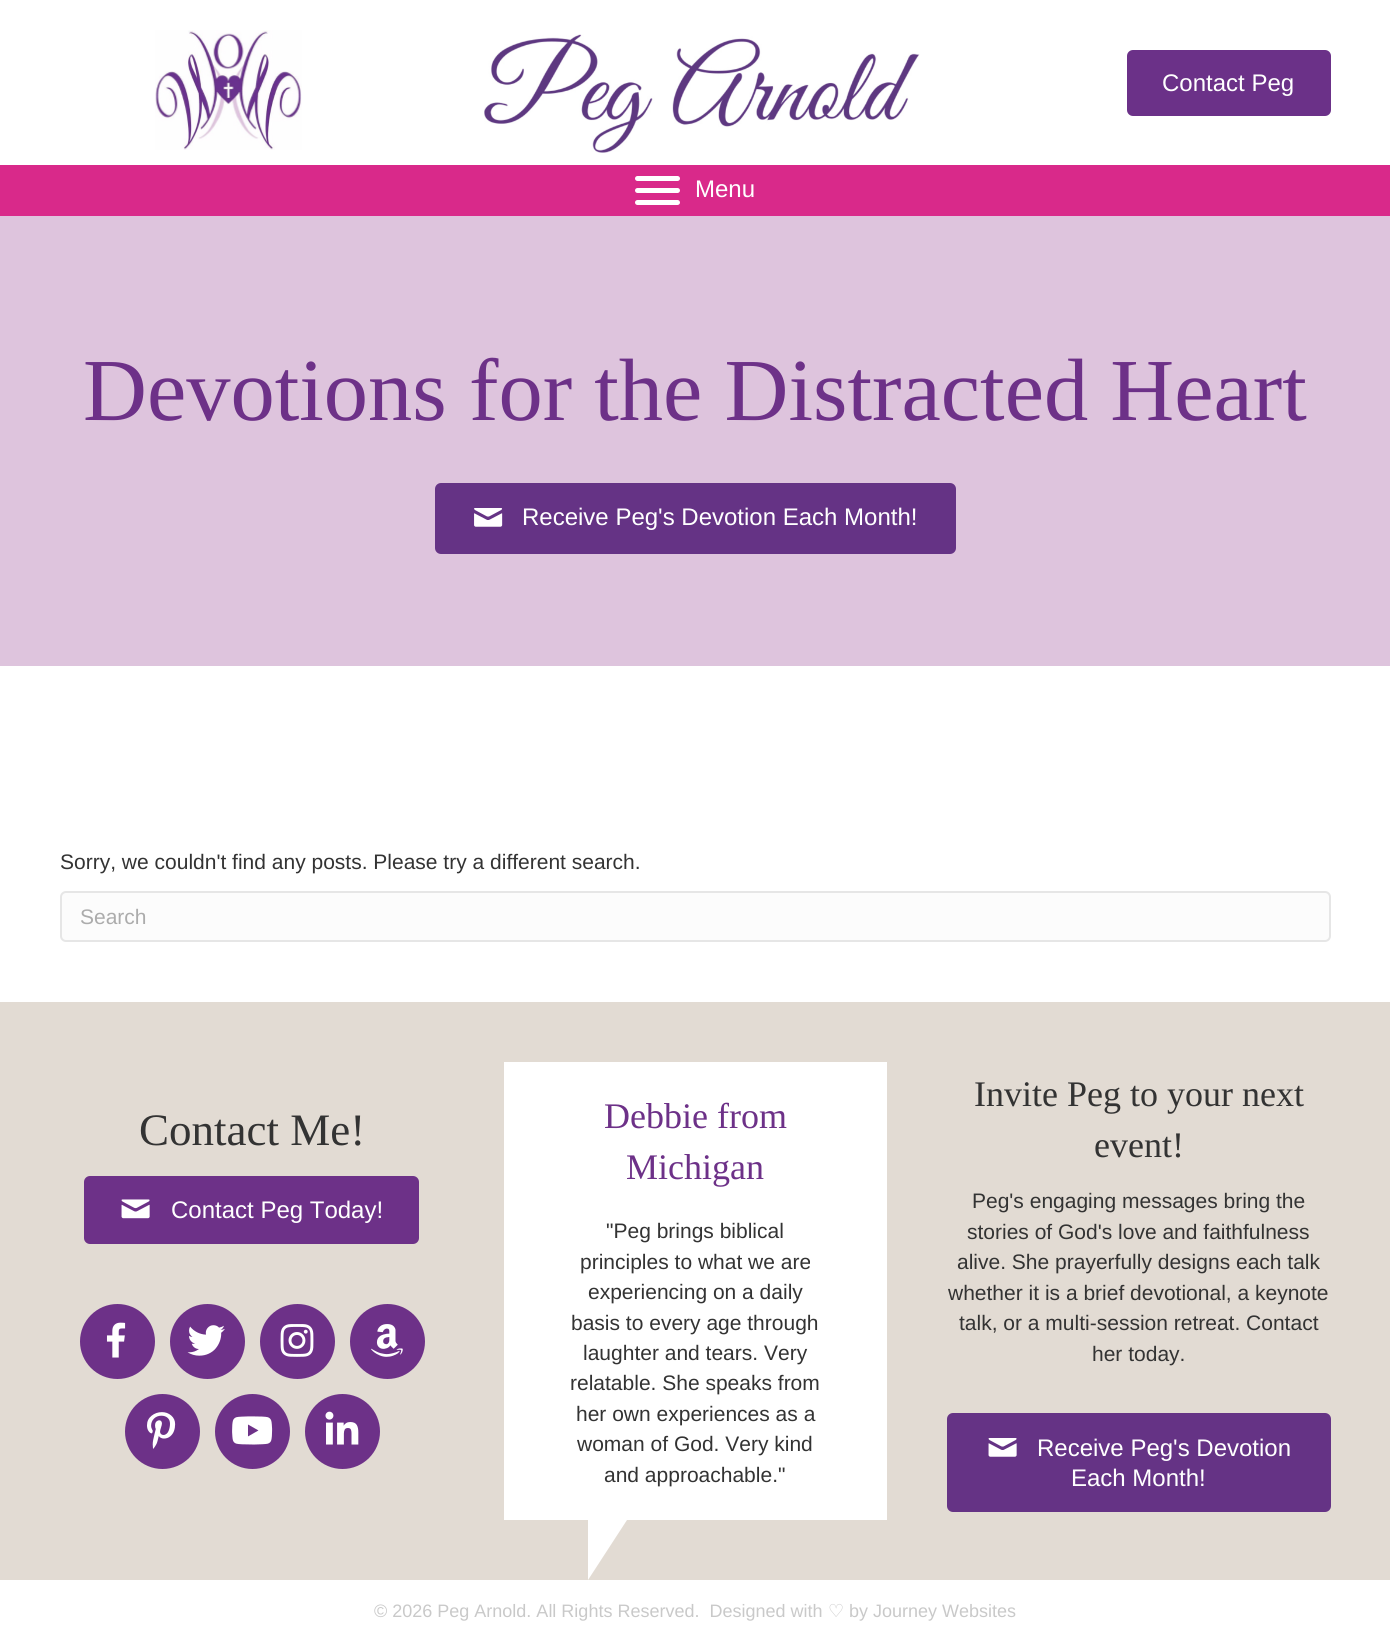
import math
import cairo

surface = cairo.ImageSurface(cairo.FORMAT_RGB24, 1390, 1626)
c = cairo.Context(surface)
options = cairo.FontOptions()
options.set_hint_metrics(cairo.HINT_METRICS_OFF)
options.set_hint_style(cairo.HINT_STYLE_NONE)
c.set_font_options(options)
c.set_miter_limit(4)
def C(code):
 c.set_source_rgb(*(v / 255 for v in bytes.fromhex(code[-6:])))
def F(family, size, italic, bold):
 c.select_font_face(family, cairo.FONT_SLANT_ITALIC if italic else cairo.FONT_SLANT_NORMAL, cairo.FONT_WEIGHT_BOLD if bold else cairo.FONT_WEIGHT_NORMAL)
 c.set_font_size(size)
def T(x, y, s):
 c.move_to(x, y)
 c.show_text(s)
def R(x, y, w, h):
 c.rectangle(x, y, w, h)
 c.fill()
def Q(x, y, w, h, r):
 c.new_sub_path()
 for i, (u, v) in enumerate([(x + w - r, y + h - r), (x + r, y + h - r), (x + r, y + r), (x + w - r, y + r)]):
  c.arc(u, v, r, i * math.pi / 2, (i + 1) * math.pi / 2)
 c.close_path()
def I(path, x, y, w, h):
 c.save()
 c.set_source_surface(cairo.ImageSurface.create_from_png(path), x, y)
 c.rectangle(x, y, w, h)
 c.fill()
 c.restore()
C('ffffff')
c.paint()
I('1.png',155,30,147,120)
I('2.png',484,34,436,119)
C('6b3188')
Q(1127,50,204,66,6)
c.fill()
F('Liberation Sans',24,0,0)
C('ffffff')
T(1162,91,'Contact Peg')
C('d9298a')
R(0,165,1390,51)
C('ffffff')
Q(635,188,45,5,2.5)
c.fill()
Q(635,176,45,5,2.5)
c.fill()
Q(635,200,45,5,2.5)
c.fill()
T(695,197,'Menu')
C('dec4dd')
R(0,216,1390,450)
F('Liberation Serif',88.5,0,0)
C('6d3188')
T(83,420,'Devotions for the Distracted Heart')
C('653385')
Q(436,484,519,69,5)
c.fill_preserve()
c.stroke()
I('3.png',474,508,29,19)
F('Liberation Sans',24,0,0)
C('ffffff')
T(522,525,'Receive Peg\'s Devotion Each Month!')
F('Liberation Sans',21,0,0)
C('333333')
T(60,869,'Sorry, we couldn\'t find any posts. Please try a different search.')
C('fcfcfc')
Q(61,892,1269,49,5)
c.fill_preserve()
C('e6e6e6')
c.stroke()
C('acacac')
T(80,924,'Search')
C('e2dbd3')
R(0,1002,1390,578)
F('Liberation Serif',45,0,0)
C('333333')
T(139,1145,'Contact Me!')
C('6d3188')
Q(84,1176,335,68,6)
c.fill()
I('4.png',121,1199,29,20)
F('Liberation Sans',24,0,0)
C('ffffff')
T(171,1218,'Contact Peg Today!')
C('6d3188')
c.new_path()
c.arc(117.5,1341.5,37.5,0,2 * math.pi)
c.fill()
I('5.png',106,1322,20,36)
c.arc(207.5,1341.5,37.5,0,2 * math.pi)
c.fill()
I('6.png',187,1325,38,31)
c.arc(297.5,1341.5,37.5,0,2 * math.pi)
c.fill()
I('7.png',280,1324,34,33)
c.arc(387.5,1341.5,37.5,0,2 * math.pi)
c.fill()
I('8.png',371,1324,32,33)
c.arc(162.5,1431.5,37.5,0,2 * math.pi)
c.fill()
I('9.png',147,1412,29,37)
c.arc(252.5,1431.5,37.5,0,2 * math.pi)
c.fill()
I('10.png',232,1416,41,29)
c.arc(342.5,1431.5,37.5,0,2 * math.pi)
c.fill()
I('11.png',325,1411,34,34)
C('ffffff')
R(504,1062,383,458)
F('Liberation Serif',36,0,0)
C('6d3188')
T(604,1128,'Debbie from')
T(626,1179,'Michigan')
F('Liberation Sans',21,0,0)
C('333333')
T(606,1238,'"Peg brings biblical')
T(580,1269,'principles to what we are')
T(588,1299,'experiencing on a daily')
T(571,1330,'basis to every age through')
T(583,1360,'laughter and tears. Very')
T(570,1390,'relatable. She speaks from')
T(576,1421,'her own experiences as a')
T(577,1451,'woman of God. Very kind')
T(604,1482,'and approachable."')
C('ffffff')
c.new_path()
c.move_to(588,1520)
c.line_to(627,1520)
c.line_to(588,1580)
c.close_path()
c.fill()
F('Liberation Serif',36,0,0)
C('333333')
T(974,1106,'Invite Peg to your next')
T(1094,1157,'event!')
F('Liberation Sans',21,0,0)
T(972,1208,'Peg\'s engaging messages bring the')
T(967,1239,'stories of God\'s love and faithfulness')
T(957,1269,'alive. She prayerfully designs each talk')
T(948,1300,'whether it is a brief devotional, a keynote')
T(959,1330,'talk, or a multi-session retreat. Contact')
T(1092,1361,'her today.')
C('653385')
Q(948,1414,382,97,5)
c.fill_preserve()
c.stroke()
I('12.png',988,1438,29,19)
F('Liberation Sans',24,0,0)
C('ffffff')
T(1037,1456,'Receive Peg\'s Devotion')
T(1071,1486,'Each Month!')
F('Liberation Sans',18,0,0)
C('c9c9c9')
T(374,1617,'© 2026 Peg Arnold. All Rights Reserved.  Designed with')
F('DejaVu Sans',18,0,0)
T(828,1617,'♡')
F('Liberation Sans',18,0,0)
T(849,1617,'by Journey Websites')
surface.write_to_png('o.png')
